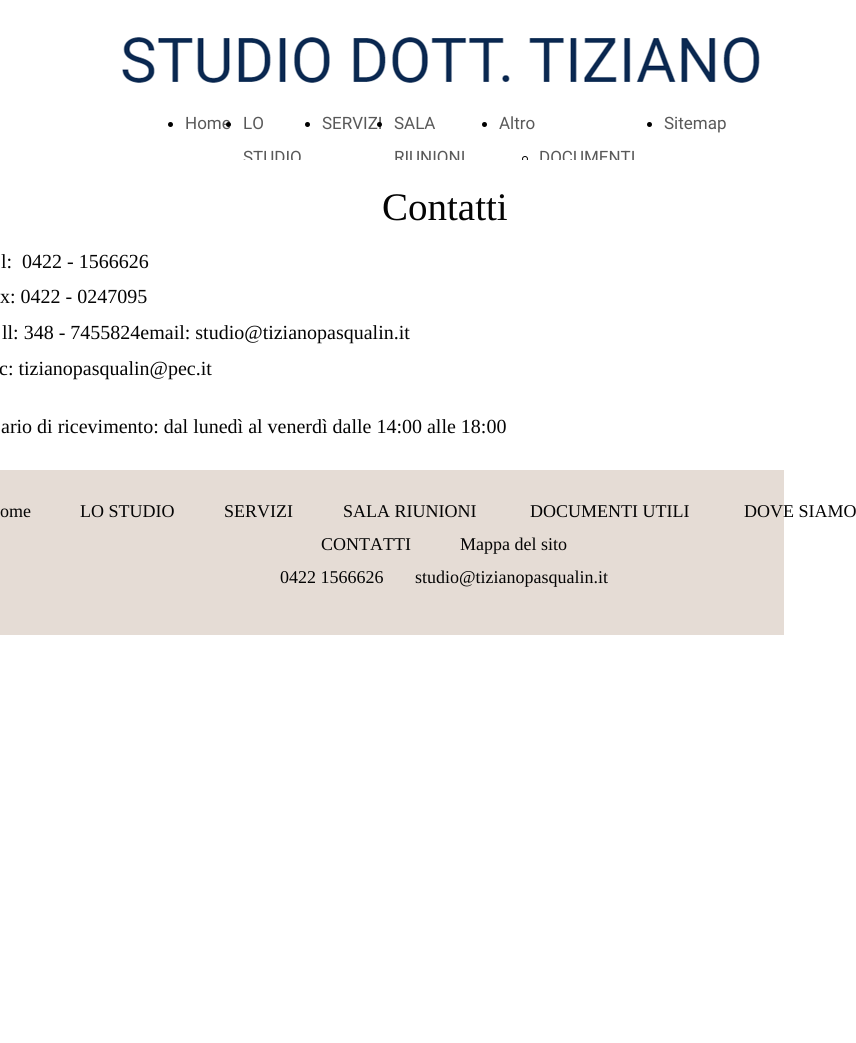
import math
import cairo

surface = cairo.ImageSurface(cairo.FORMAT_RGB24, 856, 1043)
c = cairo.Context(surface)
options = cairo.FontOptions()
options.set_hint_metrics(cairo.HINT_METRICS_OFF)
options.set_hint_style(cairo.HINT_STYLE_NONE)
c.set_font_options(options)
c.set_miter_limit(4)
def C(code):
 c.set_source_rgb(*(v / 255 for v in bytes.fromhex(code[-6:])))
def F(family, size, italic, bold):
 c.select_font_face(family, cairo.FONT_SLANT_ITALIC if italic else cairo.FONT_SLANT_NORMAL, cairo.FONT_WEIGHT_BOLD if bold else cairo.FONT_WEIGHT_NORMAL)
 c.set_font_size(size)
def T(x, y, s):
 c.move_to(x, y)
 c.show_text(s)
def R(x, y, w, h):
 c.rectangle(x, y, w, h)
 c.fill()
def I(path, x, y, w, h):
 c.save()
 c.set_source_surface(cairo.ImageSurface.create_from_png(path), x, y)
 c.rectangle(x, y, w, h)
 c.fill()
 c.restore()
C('ffffff')
c.paint()
I('1.png',122,37,638,46)
C('000000')
c.arc(170.5,124.5,2.5,0,2 * math.pi)
c.fill()
F('Roboto',17,0,0)
C('595959')
T(185,129,'Home')
C('000000')
c.new_path()
c.arc(228.5,124.5,2.5,0,2 * math.pi)
c.fill()
C('595959')
T(243,129,'LO')
T(243,163,'STUDIO')
C('000000')
c.new_path()
c.arc(307.5,124.5,2.5,0,2 * math.pi)
c.fill()
C('595959')
T(322,129,'SERVIZI')
C('000000')
c.new_path()
c.arc(379.5,124.5,2.5,0,2 * math.pi)
c.fill()
C('595959')
T(394,129,'SALA')
T(394,163,'RIUNIONI')
C('000000')
c.new_path()
c.arc(484.5,124.5,2.5,0,2 * math.pi)
c.fill()
C('595959')
T(499,129,'Altro')
c.new_path()
c.arc(525,159,2.5,0,2 * math.pi)
C('000000')
c.set_line_width(1)
c.stroke()
C('595959')
T(539,163,'DOCUMENTI')
C('000000')
c.new_path()
c.arc(649.5,124.5,2.5,0,2 * math.pi)
c.fill()
C('595959')
T(664,129,'Sitemap')
C('ffffff')
R(243,160,392,4)
F('Liberation Serif',39,0,0)
C('040404')
T(382,220,'Contatti')
F('Liberation Serif',20,0,0)
T(1,268,'l:  0422 - 1566626')
T(0,303,'x: 0422 - 0247095')
T(2,339,'ll: 348 - 7455824email: studio@tizianopasqualin.it')
T(-1,375,'c: tizianopasqualin@pec.it')
T(1,433,'ario di ricevimento: dal lunedì al venerdì dalle 14:00 alle 18:00')
C('e5dcd5')
R(0,470,784,165)
F('Liberation Serif',18,0,0)
C('040404')
T(0,517,'ome')
T(80,517,'LO STUDIO')
T(224,517,'SERVIZI')
T(343,517,'SALA RIUNIONI')
T(530,517,'DOCUMENTI UTILI')
T(744,517,'DOVE SIAMO')
T(321,550,'CONTATTI')
T(460,550,'Mappa del sito')
T(280,583,'0422 1566626')
T(415,583,'studio@tizianopasqualin.it')
surface.write_to_png('o.png')
